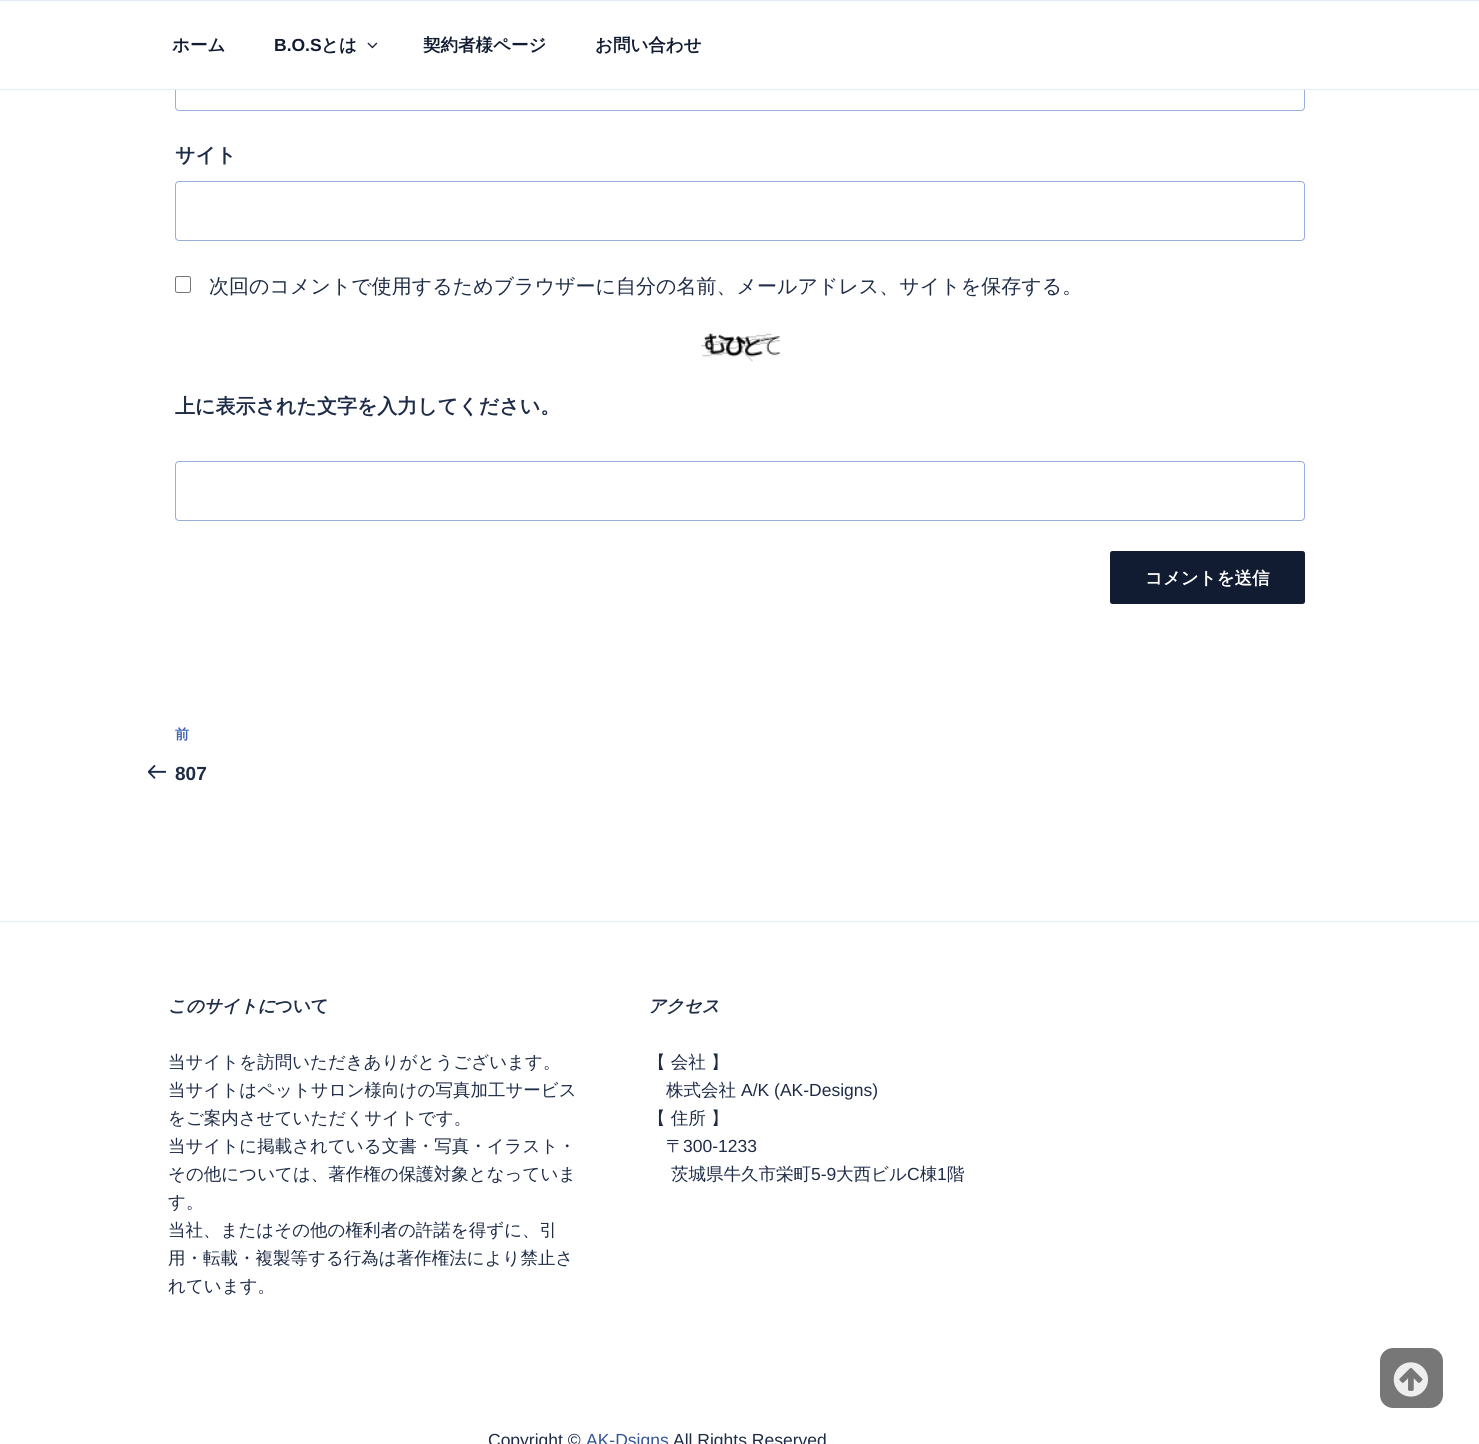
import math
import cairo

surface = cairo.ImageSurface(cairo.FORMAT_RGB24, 1479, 1444)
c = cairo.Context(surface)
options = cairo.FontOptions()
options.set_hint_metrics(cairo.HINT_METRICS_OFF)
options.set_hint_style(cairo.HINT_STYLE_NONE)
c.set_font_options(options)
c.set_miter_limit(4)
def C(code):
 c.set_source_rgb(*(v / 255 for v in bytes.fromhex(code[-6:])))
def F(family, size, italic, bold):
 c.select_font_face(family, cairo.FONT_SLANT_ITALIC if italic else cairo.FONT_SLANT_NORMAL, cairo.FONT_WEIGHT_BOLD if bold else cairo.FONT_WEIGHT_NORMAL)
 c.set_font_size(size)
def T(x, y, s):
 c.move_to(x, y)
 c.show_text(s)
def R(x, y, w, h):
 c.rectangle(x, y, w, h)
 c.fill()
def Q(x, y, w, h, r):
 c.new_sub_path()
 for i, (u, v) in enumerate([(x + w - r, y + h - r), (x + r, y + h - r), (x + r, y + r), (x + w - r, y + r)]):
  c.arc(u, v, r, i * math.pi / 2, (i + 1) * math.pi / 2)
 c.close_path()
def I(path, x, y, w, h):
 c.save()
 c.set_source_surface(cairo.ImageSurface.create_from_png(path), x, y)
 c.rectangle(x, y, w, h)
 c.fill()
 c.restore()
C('ffffff')
c.paint()
Q(175.5,50.5,1129,60,3.5)
C('98afdd')
c.set_line_width(1)
c.stroke()
C('ffffff')
R(175,50,1130,39)
C('e4eaf6')
R(0,0,1479,1)
R(0,89,1479,1)
F('WenQuanYi Zen Hei',17.5,0,1)
C('111c32')
T(172,51,'ホーム')
F('Liberation Sans',17.5,0,1)
T(274,51,'B.O.S')
F('WenQuanYi Zen Hei',17.5,0,1)
T(321,51,'とは')
I('1.png',367,42,11,7)
T(423,51,'契約者様ページ')
T(595,51,'お問い合わせ')
F('WenQuanYi Zen Hei',20,0,1)
C('1f2c47')
T(175,162,'サイト')
Q(175.5,181.5,1129,59,3.5)
C('98afdd')
c.stroke()
Q(175.5,276.5,15,16,2)
C('767676')
c.stroke()
F('WenQuanYi Zen Hei Medium',20,0,0)
C('1f2c47')
T(209,293,'次回のコメントで使用するためブラウザーに自分の名前、メールアドレス、サイトを保存する。')
I('2.png',701,333,80,29)
F('WenQuanYi Zen Hei',20,0,1)
T(175,413,'上に表示された文字を入力してください。')
Q(175.5,461.5,1129,59,3.5)
C('98afdd')
c.stroke()
C('111c32')
Q(1110,551,195,53,2.5)
c.fill()
F('WenQuanYi Zen Hei',17.5,0,1)
C('ffffff')
T(1145,584,'コメントを送信')
F('WenQuanYi Zen Hei',14,0,1)
C('3b62b0')
T(175,739,'前')
I('3.png',148,765,18,14)
F('Liberation Sans',19,0,1)
C('1f2c47')
T(175,780,'807')
C('e4eaf6')
R(0,921,1479,1)
F('WenQuanYi Zen Hei',17.5,1,1)
C('1f2c47')
T(168,1012,'このサイトに')
F('WenQuanYi Zen Hei',17.5,0,1)
T(275,1012,'ついて')
F('WenQuanYi Zen Hei Medium',17.5,0,0)
T(168,1068,'当サイトを訪問いただきありがとうございます。')
T(168,1096,'当サイトはペットサロン様向けの写真加工サービス')
T(168,1124,'をご案内させていただくサイトです。')
T(168,1152,'当サイトに掲載されている文書・写真・イラスト・')
T(168,1180,'その他については、著作権の保護対象となっていま')
T(168,1208,'す。')
T(168,1236,'当社、またはその他の権利者の許諾を得ずに、引')
T(168,1264,'用・転載・複製等する行為は著作権法により禁止さ')
T(168,1292,'れています。')
F('WenQuanYi Zen Hei',17.5,1,1)
T(648,1012,'アクセス')
F('WenQuanYi Zen Hei Medium',17.5,0,0)
T(648,1068,'【 会社 】')
T(666,1096,'株式会社')
F('Liberation Sans',17.5,0,0)
T(741,1096,'A/K (AK-Designs)')
F('WenQuanYi Zen Hei Medium',17.5,0,0)
T(648,1124,'【 住所 】')
T(666,1152,'〒')
F('Liberation Sans',17.5,0,0)
T(683,1152,'300-1233')
F('WenQuanYi Zen Hei Medium',17.5,0,0)
T(671,1180,'茨城県牛久市栄町')
F('Liberation Sans',17.5,0,0)
T(811,1180,'5-9')
F('WenQuanYi Zen Hei Medium',17.5,0,0)
T(836,1180,'大西ビル')
F('Liberation Sans',17.5,0,0)
T(907,1180,'C')
F('WenQuanYi Zen Hei Medium',17.5,0,0)
T(920,1180,'棟')
F('Liberation Sans',17.5,0,0)
T(937,1180,'1')
F('WenQuanYi Zen Hei Medium',17.5,0,0)
T(947,1180,'階')
F('Liberation Sans',17.5,0,0)
T(488,1446,'Copyright ©')
C('335599')
T(586,1446,'AK-Dsigns')
C('1f2c47')
T(673,1446,'All Rights Reserved')
C('777777')
Q(1380,1348,63,60,13)
c.fill()
I('4.png',1393,1362,35,35)
surface.write_to_png('o.png')
